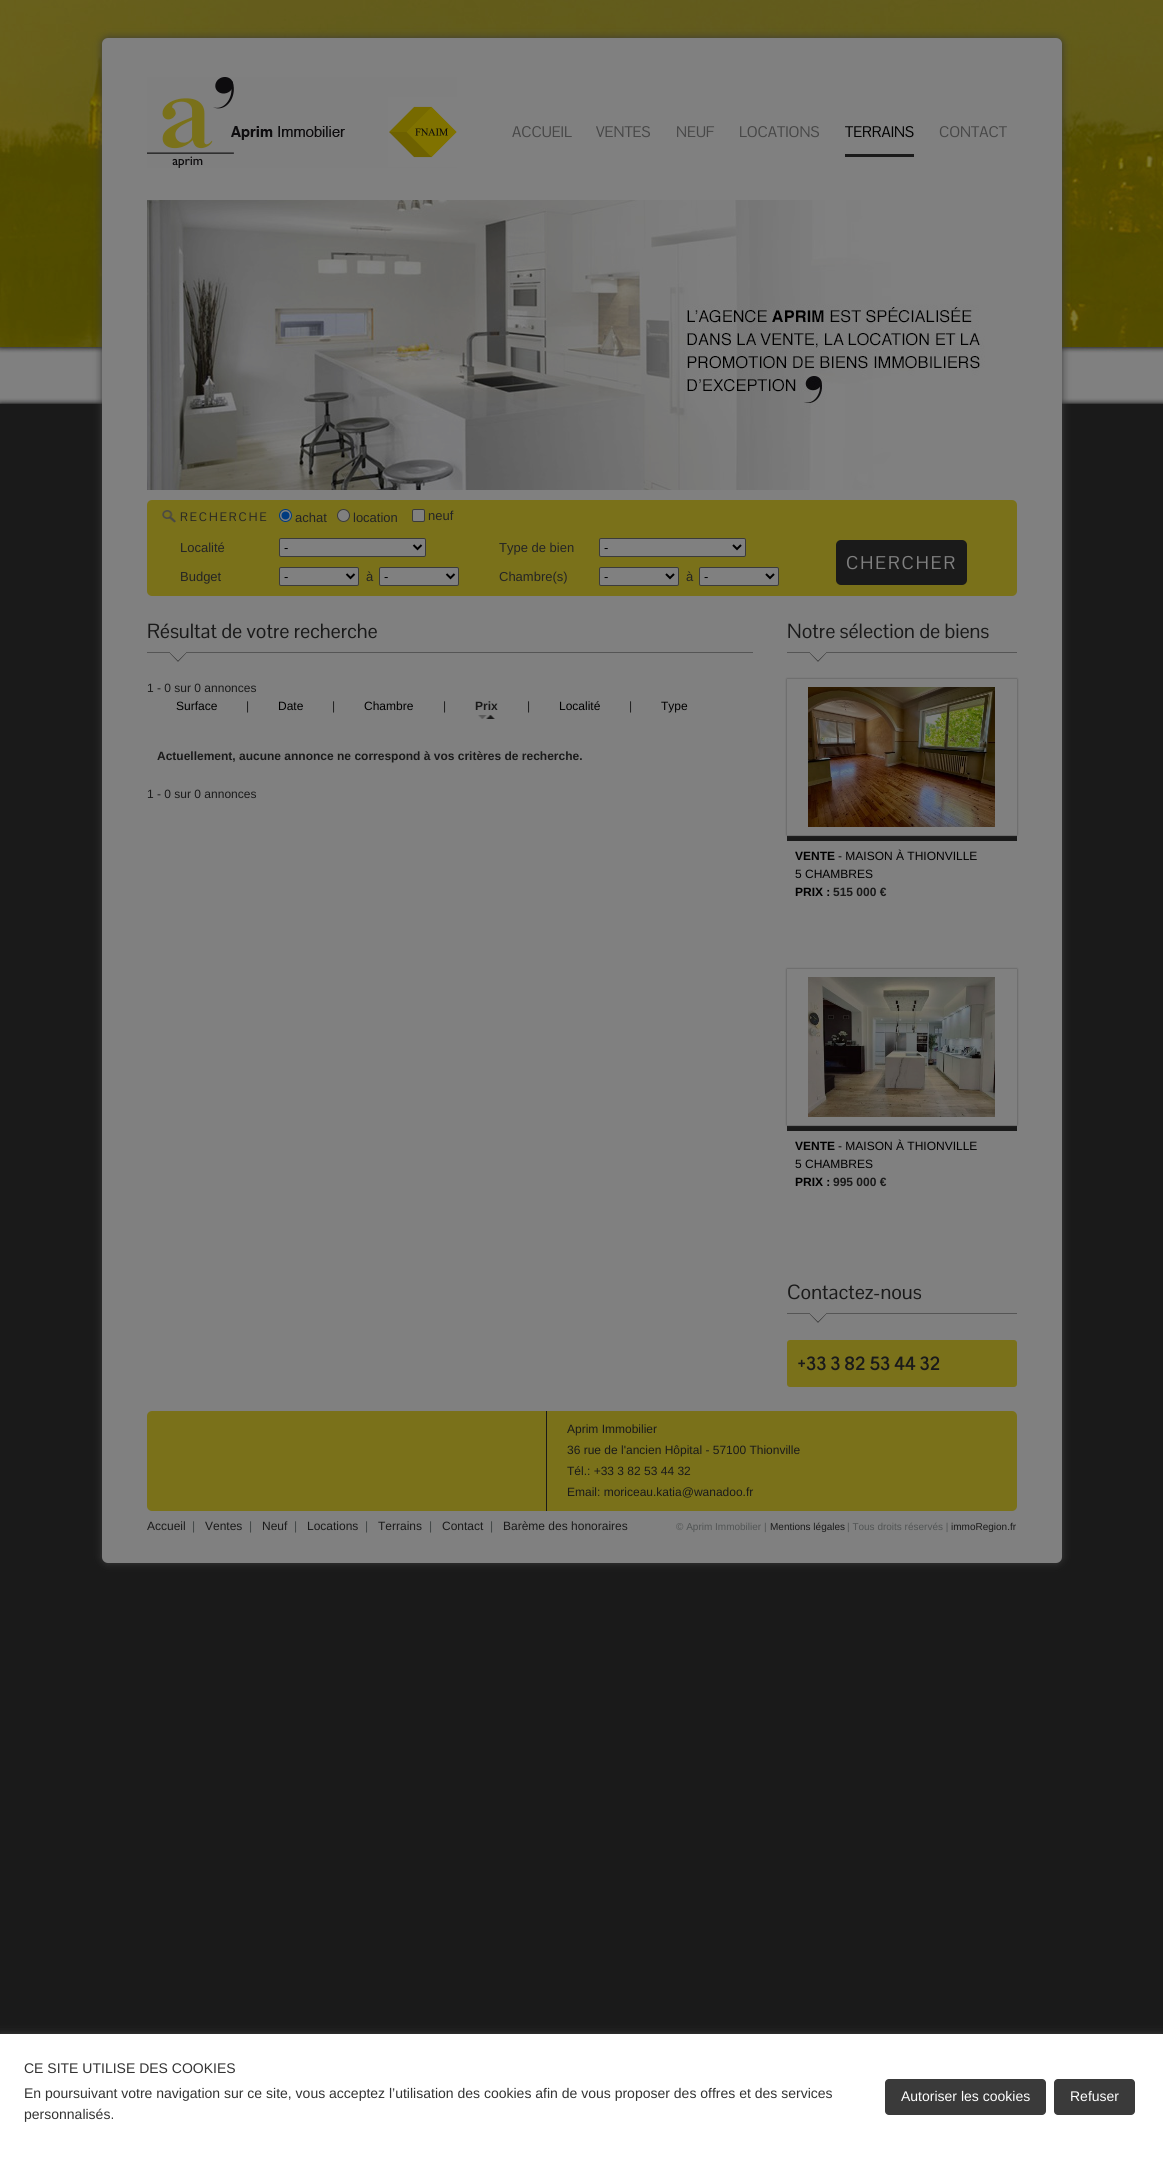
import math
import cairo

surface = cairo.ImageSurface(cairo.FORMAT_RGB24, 1163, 2159)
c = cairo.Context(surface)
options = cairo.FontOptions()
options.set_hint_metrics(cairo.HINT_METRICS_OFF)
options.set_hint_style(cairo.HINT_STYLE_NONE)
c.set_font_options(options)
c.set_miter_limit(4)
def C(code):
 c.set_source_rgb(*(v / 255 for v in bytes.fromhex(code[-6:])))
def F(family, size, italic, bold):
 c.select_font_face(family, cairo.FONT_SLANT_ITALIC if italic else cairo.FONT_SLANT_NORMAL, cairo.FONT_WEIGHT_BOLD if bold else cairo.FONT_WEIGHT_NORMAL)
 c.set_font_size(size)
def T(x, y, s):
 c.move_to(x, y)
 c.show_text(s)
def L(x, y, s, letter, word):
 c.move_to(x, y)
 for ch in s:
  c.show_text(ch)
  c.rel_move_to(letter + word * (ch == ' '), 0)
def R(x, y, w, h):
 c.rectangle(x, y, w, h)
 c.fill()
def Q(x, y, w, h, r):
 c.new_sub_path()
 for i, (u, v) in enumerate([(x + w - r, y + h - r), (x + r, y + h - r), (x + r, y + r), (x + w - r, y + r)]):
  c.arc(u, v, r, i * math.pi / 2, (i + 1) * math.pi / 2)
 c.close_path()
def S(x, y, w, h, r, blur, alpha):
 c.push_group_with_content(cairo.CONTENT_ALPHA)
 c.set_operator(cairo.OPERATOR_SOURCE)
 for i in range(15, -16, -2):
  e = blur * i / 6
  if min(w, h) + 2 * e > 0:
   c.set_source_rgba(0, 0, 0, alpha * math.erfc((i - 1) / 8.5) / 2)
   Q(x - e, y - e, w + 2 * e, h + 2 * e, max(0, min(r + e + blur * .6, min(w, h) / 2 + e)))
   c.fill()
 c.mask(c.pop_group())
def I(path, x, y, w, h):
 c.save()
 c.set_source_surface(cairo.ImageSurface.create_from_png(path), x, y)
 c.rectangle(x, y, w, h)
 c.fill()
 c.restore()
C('1a1a1a')
c.paint()
I('1.png',0,0,1163,404)
C('3c3c3c')
S(102,38,960,1525,6,4,1)
C('808080')
Q(102,38,960,1525,6)
c.fill()
I('2.png',147,77,310,91)
F('Pontano Sans',15,0,0)
C('464646')
T(512,137,'ACCUEIL')
T(596,137,'VENTES')
T(676,137,'NEUF')
T(739,137,'LOCATIONS')
C('1a1a1a')
R(845,154,69,3)
C('000000')
T(845,137,'TERRAINS')
C('464646')
T(939,137,'CONTACT')
I('3.png',147,200,838,290)
C('7a711a')
Q(147,500,870,96,5)
c.fill()
C('808080')
c.arc(285.5,515.5,6,0,2 * math.pi)
c.fill_preserve()
C('003b80')
c.set_line_width(1)
c.stroke()
c.arc(285.5,515.5,4,0,2 * math.pi)
c.fill()
F('Liberation Sans',13,0,0)
C('242424')
T(295,522,'achat')
C('808080')
c.new_path()
c.arc(343.5,515.5,6,0,2 * math.pi)
c.fill_preserve()
C('3b3b3b')
c.stroke()
C('242424')
T(353,522,'location')
C('808080')
Q(412.5,509.5,12,12,1.5)
c.fill_preserve()
C('3b3b3b')
c.stroke()
C('242424')
T(428,520,'neuf')
T(180,552,'Localité')
C('808080')
Q(279.5,538.5,146,18,1.5)
c.fill_preserve()
C('3b3b3b')
c.stroke()
c.new_path()
c.move_to(413.5,545)
c.line_to(417.5,549)
c.line_to(421.5,545)
C('000000')
c.set_line_width(2)
c.stroke()
T(284,552,'-')
C('242424')
T(499,552,'Type de bien')
C('808080')
Q(599.5,538.5,146,18,1.5)
c.fill_preserve()
C('3b3b3b')
c.set_line_width(1)
c.stroke()
c.new_path()
c.move_to(733,545)
c.line_to(737,549)
c.line_to(741,545)
C('000000')
c.set_line_width(2)
c.stroke()
T(604,552,'-')
C('1a1a1a')
Q(836,540,131,45,5)
c.fill()
F('Pontano Sans',18,0,0)
C('808080')
L(846,569,'CHERCHER',2,0)
F('Liberation Sans',13,0,0)
C('242424')
T(180,581,'Budget')
C('808080')
Q(279.5,567.5,79,18,1.5)
c.fill_preserve()
C('3b3b3b')
c.set_line_width(1)
c.stroke()
c.new_path()
c.move_to(346.5,574)
c.line_to(350.5,578)
c.line_to(354.5,574)
C('000000')
c.set_line_width(2)
c.stroke()
T(284,581,'-')
C('242424')
T(366,581,'à')
C('808080')
Q(379.5,567.5,79,18,1.5)
c.fill_preserve()
C('3b3b3b')
c.set_line_width(1)
c.stroke()
c.new_path()
c.move_to(446.5,574)
c.line_to(450.5,578)
c.line_to(454.5,574)
C('000000')
c.set_line_width(2)
c.stroke()
T(384,581,'-')
C('242424')
T(499,581,'Chambre(s)')
C('808080')
Q(599.5,567.5,79,18,1.5)
c.fill_preserve()
C('3b3b3b')
c.set_line_width(1)
c.stroke()
c.new_path()
c.move_to(666,574)
c.line_to(670,578)
c.line_to(674,574)
C('000000')
c.set_line_width(2)
c.stroke()
T(604,581,'-')
C('242424')
T(686,581,'à')
C('808080')
Q(699.5,567.5,79,18,1.5)
c.fill_preserve()
C('3b3b3b')
c.set_line_width(1)
c.stroke()
c.new_path()
c.move_to(766,574)
c.line_to(770,578)
c.line_to(774,574)
C('000000')
c.set_line_width(2)
c.stroke()
T(704,581,'-')
I('4.png',162,510,14,13)
F('Pontano Sans',12,0,0)
C('242424')
L(180,521,'RECHERCHE',2,0)
C('555555')
R(147,652,606,1)
F('Pontano Sans',20,0,0)
C('1a1a1a')
T(147,638,'Résultat de votre recherche')
I('5.png',169,652,18,10)
F('Liberation Sans',12,0,0)
T(147,692,'1 - 0 sur 0 annonces')
C('000000')
T(176,710,'Surface')
C('1a1a1a')
T(246,710,'|')
C('000000')
T(278,710,'Date')
C('1a1a1a')
T(332,710,'|')
C('000000')
T(364,710,'Chambre')
C('1a1a1a')
T(443,710,'|')
R(478,715,17,4)
I('6.png',475,697,23,28)
F('Liberation Sans',12,0,1)
T(475,710,'Prix')
F('Liberation Sans',12,0,0)
T(527,710,'|')
C('000000')
T(559,710,'Localité')
C('1a1a1a')
T(629,710,'|')
C('000000')
T(661,710,'Type')
F('Liberation Sans',12,0,1)
C('1a1a1a')
T(157,760,'Actuellement, aucune annonce ne correspond à vos critères de recherche.')
F('Liberation Sans',12,0,0)
T(147,798,'1 - 0 sur 0 annonces')
C('555555')
R(787,652,230,1)
F('Pontano Sans',20,0,0)
C('1a1a1a')
T(787,638,'Notre sélection de biens')
I('5.png',809,652,18,10)
R(787,836,230,5)
c.save()
c.set_fill_rule(cairo.FILL_RULE_EVEN_ODD)
c.new_path()
c.move_to(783,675)
c.line_to(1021,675)
c.line_to(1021,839)
c.line_to(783,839)
c.close_path()
c.move_to(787,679)
c.line_to(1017,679)
c.line_to(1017,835)
c.line_to(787,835)
c.close_path()
c.clip()
C('4d4d4d')
S(787,679,230,156,0,1,1)
c.restore()
I('7.png',808,687,187,140)
F('Liberation Sans',12,0,1)
C('000000')
T(795,860,'VENTE')
F('Liberation Sans',12,0,0)
T(838,860,'- MAISON À THIONVILLE')
T(795,878,'5 CHAMBRES')
F('Liberation Sans',12,0,1)
T(795,896,'PRIX :')
C('1a1a1a')
T(833,896,'515 000 €')
R(787,1126,230,5)
c.save()
c.set_fill_rule(cairo.FILL_RULE_EVEN_ODD)
c.new_path()
c.move_to(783,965)
c.line_to(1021,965)
c.line_to(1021,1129)
c.line_to(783,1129)
c.close_path()
c.move_to(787,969)
c.line_to(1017,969)
c.line_to(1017,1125)
c.line_to(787,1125)
c.close_path()
c.clip()
C('4d4d4d')
S(787,969,230,156,0,1,1)
c.restore()
I('8.png',808,977,187,140)
C('000000')
T(795,1150,'VENTE')
F('Liberation Sans',12,0,0)
T(838,1150,'- MAISON À THIONVILLE')
T(795,1168,'5 CHAMBRES')
F('Liberation Sans',12,0,1)
T(795,1186,'PRIX :')
C('1a1a1a')
T(833,1186,'995 000 €')
C('555555')
R(787,1313,230,1)
F('Pontano Sans',20,0,0)
C('1a1a1a')
T(787,1299,'Contactez-nous')
I('5.png',809,1313,18,10)
C('7a711a')
Q(787,1340,230,47,3)
c.fill()
F('Pontano Sans',18,0,1)
C('1a1a1a')
T(797,1370,'+33 3 82 53 44 32')
C('7a711a')
Q(147,1411,870,100,5)
c.fill()
C('1a1a1a')
R(546,1411,1,100)
F('Liberation Sans',12,0,0)
T(567,1433,'Aprim Immobilier')
T(567,1454,'36 rue de l\'ancien Hôpital - 57100 Thionville')
T(567,1475,'Tél.: +33 3 82 53 44 32')
T(567,1496,'Email: moriceau.katia@wanadoo.fr')
T(147,1530,'Accueil')
C('3f4444')
T(192,1530,'|')
C('1a1a1a')
T(205,1530,'Ventes')
C('3f4444')
T(249,1530,'|')
C('1a1a1a')
T(262,1530,'Neuf')
C('3f4444')
T(294,1530,'|')
C('1a1a1a')
T(307,1530,'Locations')
C('3f4444')
T(365,1530,'|')
C('1a1a1a')
T(378,1530,'Terrains')
C('3f4444')
T(429,1530,'|')
C('1a1a1a')
T(442,1530,'Contact')
C('3f4444')
T(490,1530,'|')
C('1a1a1a')
T(503,1530,'Barème des honoraires')
F('Liberation Sans',10,0,0)
C('515454')
T(676,1530,'© Aprim Immobilier |')
C('1a1a1a')
T(770,1530,'Mentions légales')
C('515454')
T(847,1530,'| Tous droits réservés |')
C('1a1a1a')
T(951,1530,'immoRegion.fr')
C('606060')
S(0,2037,1163,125,0,5,1)
C('ffffff')
R(0,2034,1163,125)
F('Liberation Sans',14,0,0)
C('333333')
T(24,2073,'CE SITE UTILISE DES COOKIES')
T(24,2098,'En poursuivant votre navigation sur ce site, vous acceptez l’utilisation des cookies afin de vous proposer des offres et des services')
T(24,2119,'personnalisés.')
C('3a3a3a')
Q(885,2079,161,36,4)
c.fill()
C('ffffff')
T(901,2101,'Autoriser les cookies')
C('3a3a3a')
Q(1054,2079,81,36,4)
c.fill()
C('ffffff')
T(1070,2101,'Refuser')
surface.write_to_png('o.png')
